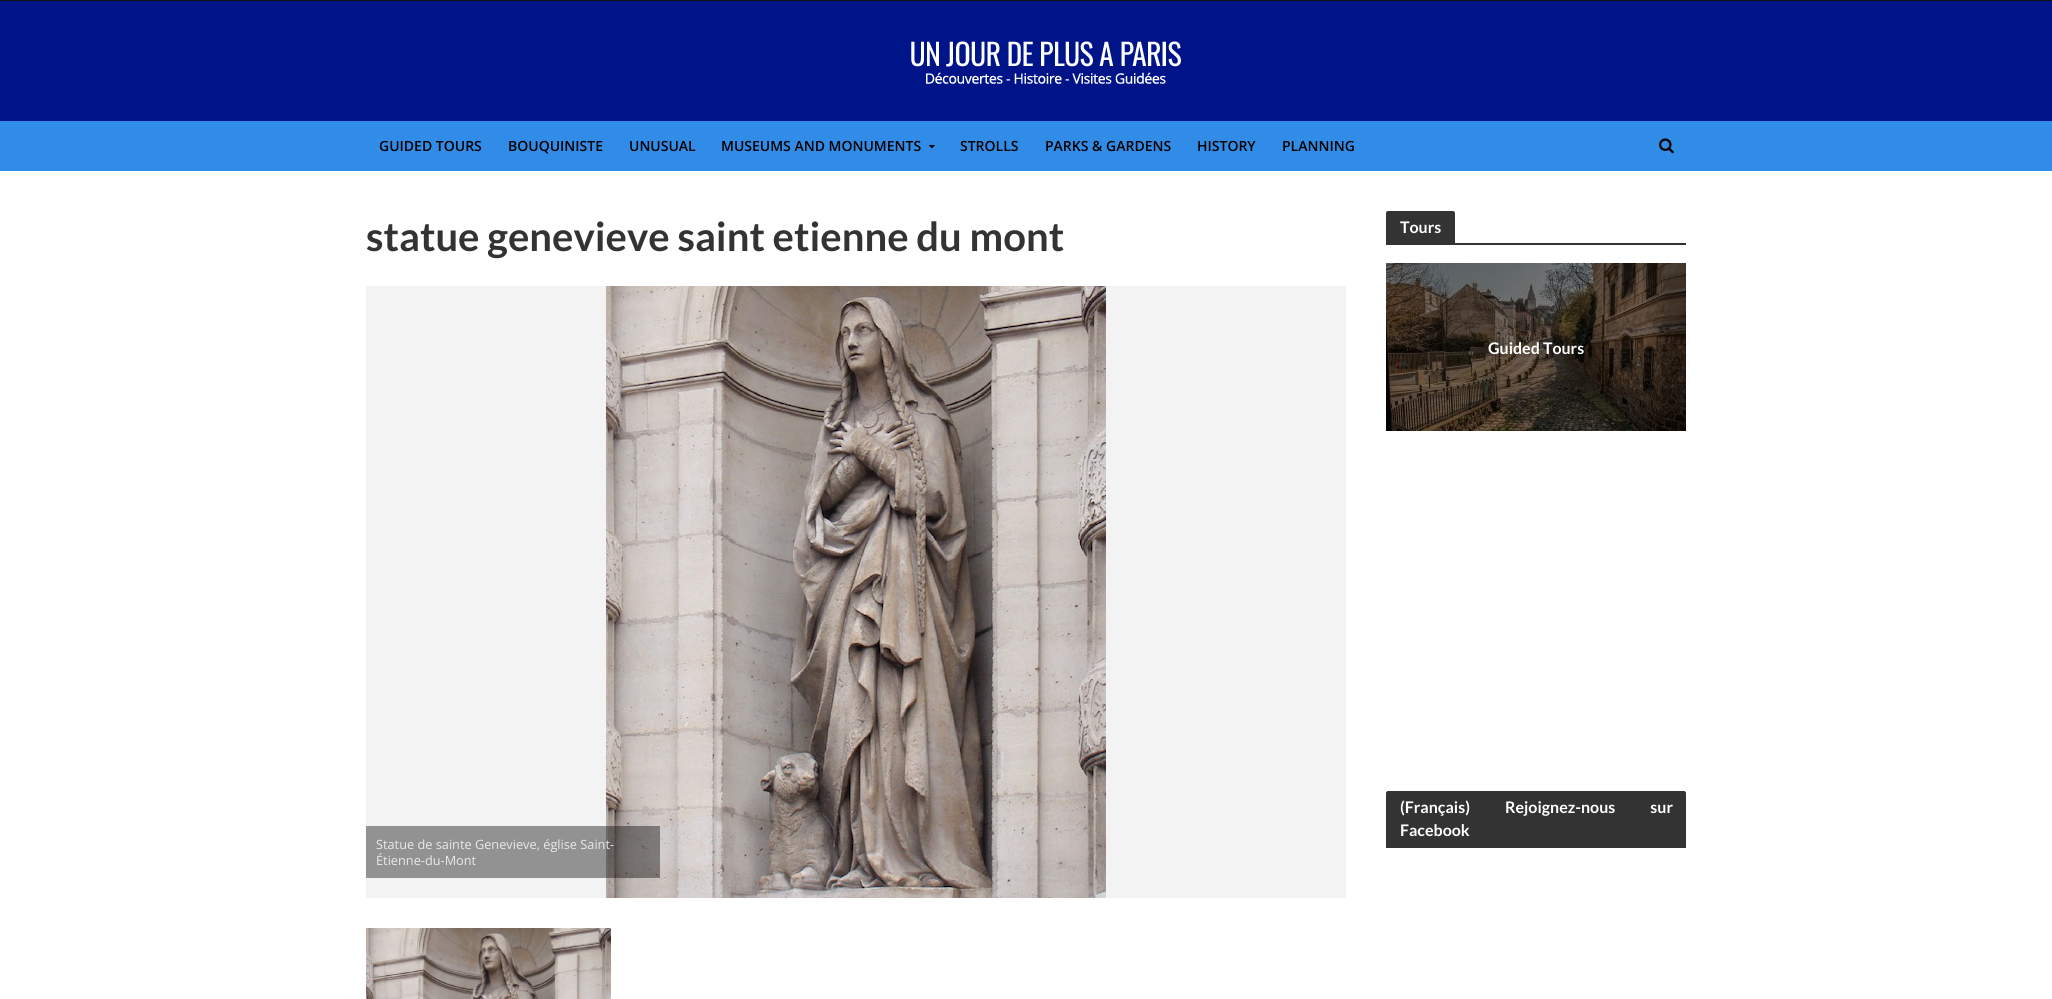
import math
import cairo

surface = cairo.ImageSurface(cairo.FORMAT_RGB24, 2052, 999)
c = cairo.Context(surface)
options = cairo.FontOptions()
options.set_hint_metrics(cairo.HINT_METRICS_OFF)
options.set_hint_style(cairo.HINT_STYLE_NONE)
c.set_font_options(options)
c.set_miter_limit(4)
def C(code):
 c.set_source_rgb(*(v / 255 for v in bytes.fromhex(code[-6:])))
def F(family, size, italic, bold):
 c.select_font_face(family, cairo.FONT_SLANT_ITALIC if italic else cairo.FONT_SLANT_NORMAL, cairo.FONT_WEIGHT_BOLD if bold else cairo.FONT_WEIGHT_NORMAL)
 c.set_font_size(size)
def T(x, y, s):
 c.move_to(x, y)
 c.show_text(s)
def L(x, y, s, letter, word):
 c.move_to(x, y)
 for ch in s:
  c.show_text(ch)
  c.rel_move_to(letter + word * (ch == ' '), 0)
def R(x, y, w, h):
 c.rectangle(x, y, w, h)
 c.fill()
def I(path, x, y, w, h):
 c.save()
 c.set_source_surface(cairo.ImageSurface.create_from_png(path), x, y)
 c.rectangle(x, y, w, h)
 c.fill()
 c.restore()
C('ffffff')
c.paint()
C('111111')
R(0,0,2052,1)
C('001489')
R(0,1,2052,120)
I('1.png',911,41,270,43)
C('318ce7')
R(0,121,2052,50)
F('Open Sans SemiBold',14,0,0)
C('000000')
T(379,151,'GUIDED TOURS')
T(508,151,'BOUQUINISTE')
T(629,151,'UNUSUAL')
T(721,151,'MUSEUMS AND MONUMENTS')
I('2.png',929,145,6,4)
T(960,151,'STROLLS')
T(1045,151,'PARKS & GARDENS')
T(1197,151,'HISTORY')
T(1282,151,'PLANNING')
I('3.png',1659,138,15,16)
F('Lato',40,0,1)
C('333333')
T(366,251,'statue genevieve saint etienne du mont')
C('f3f3f3')
R(366,286,980,612)
I('4.png',606,286,500,612)
c.set_source_rgba(0,0,0,0.4)
R(366,826,294,52)
F('Open Sans',12.75,0,0)
C('e9e9e9')
T(376,849,'Statue de sainte Genevieve, église Saint-')
T(376,865,'Étienne-du-Mont')
I('5.png',366,928,245,71)
C('333333')
c.new_path()
c.move_to(1388,211)
c.line_to(1453,211)
c.curve_to(1454,211,1455,212,1455,213)
c.line_to(1455,243)
c.line_to(1386,243)
c.line_to(1386,213)
c.curve_to(1386,212,1387,211,1388,211)
c.close_path()
c.fill()
F('Lato',16,0,1)
C('ffffff')
T(1400,233,'Tours')
C('333333')
R(1386,243,300,2)
I('6.png',1386,263,300,168)
C('ffffff')
T(1488,354,'Guided Tours')
C('333333')
c.new_path()
c.move_to(1388,791)
c.line_to(1684,791)
c.curve_to(1685,791,1686,792,1686,793)
c.line_to(1686,846)
c.line_to(1386,846)
c.line_to(1386,793)
c.curve_to(1386,792,1387,791,1388,791)
c.close_path()
c.fill()
C('ffffff')
L(1400,813,'(Français) Rejoignez-nous sur',0,32)
T(1400,836,'Facebook')
C('333333')
R(1386,846,300,2)
surface.write_to_png('o.png')
